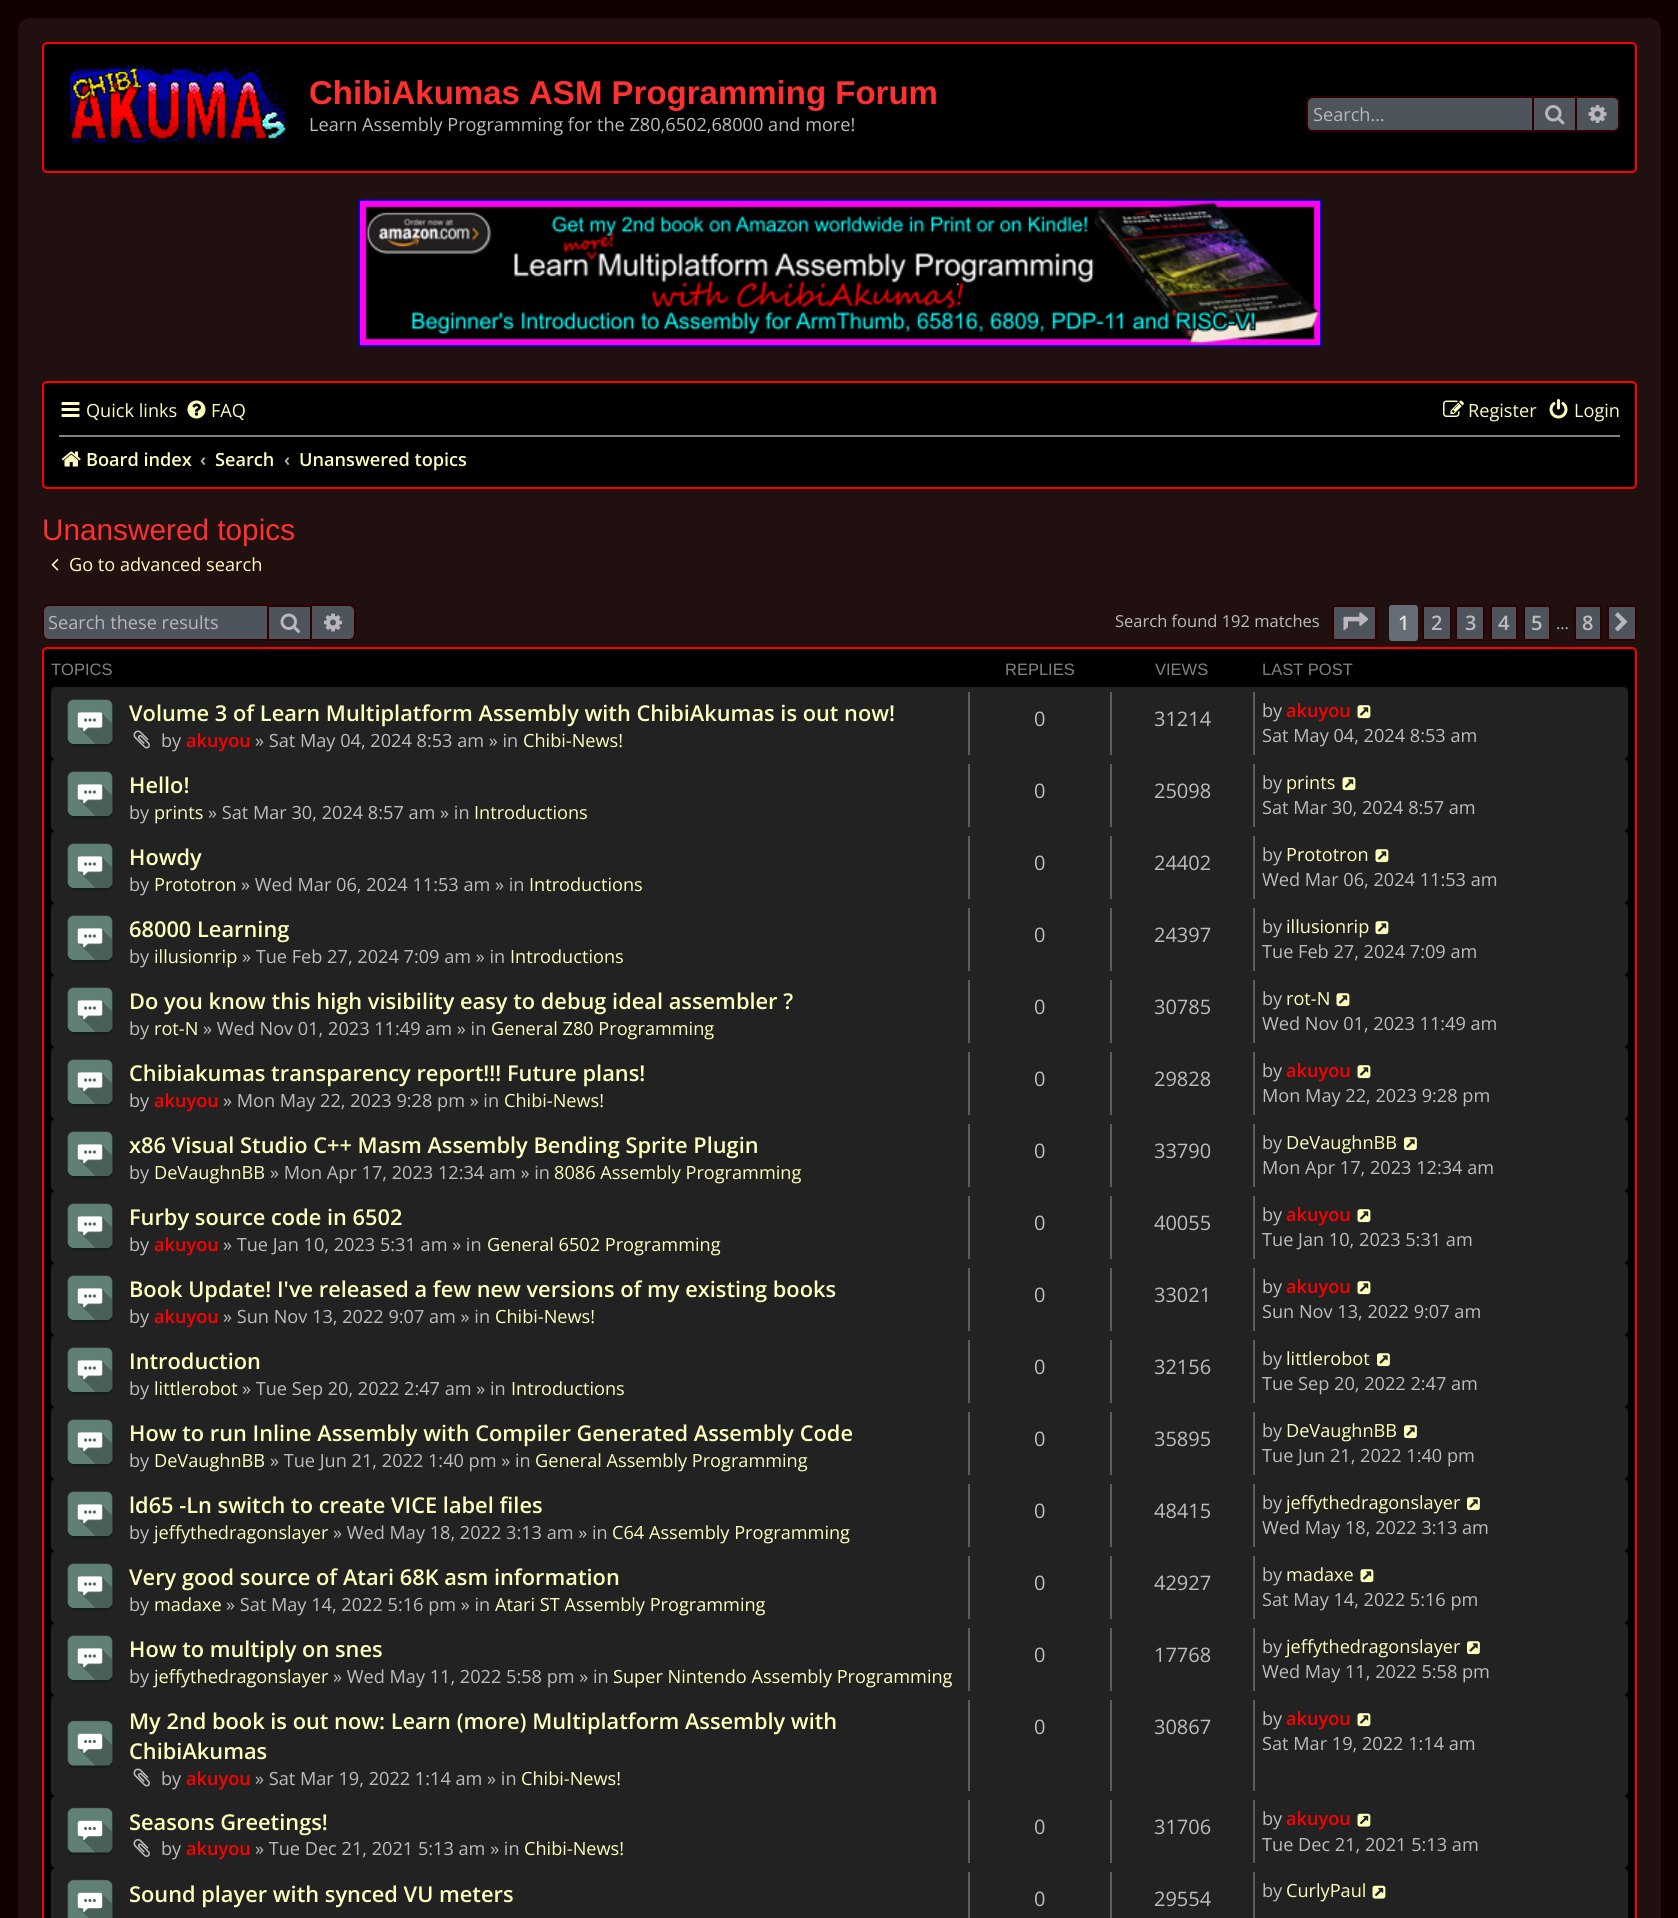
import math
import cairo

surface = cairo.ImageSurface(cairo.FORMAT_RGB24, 1678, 1918)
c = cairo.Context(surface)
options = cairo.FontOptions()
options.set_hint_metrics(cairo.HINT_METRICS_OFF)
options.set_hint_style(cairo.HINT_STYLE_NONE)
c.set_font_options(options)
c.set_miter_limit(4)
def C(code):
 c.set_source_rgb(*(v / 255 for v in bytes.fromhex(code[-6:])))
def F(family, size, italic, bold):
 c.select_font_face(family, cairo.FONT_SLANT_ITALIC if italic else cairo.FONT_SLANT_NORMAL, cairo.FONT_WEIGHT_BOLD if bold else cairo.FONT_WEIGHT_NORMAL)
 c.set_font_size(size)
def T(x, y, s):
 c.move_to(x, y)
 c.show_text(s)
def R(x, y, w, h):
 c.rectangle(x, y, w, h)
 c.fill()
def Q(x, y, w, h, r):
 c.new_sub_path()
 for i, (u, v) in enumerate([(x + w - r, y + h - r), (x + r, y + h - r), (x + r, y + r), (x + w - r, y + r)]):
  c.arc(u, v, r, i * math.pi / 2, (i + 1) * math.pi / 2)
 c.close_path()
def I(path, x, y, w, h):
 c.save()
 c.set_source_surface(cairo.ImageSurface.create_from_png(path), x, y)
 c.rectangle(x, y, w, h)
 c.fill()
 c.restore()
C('100000')
c.paint()
C('201010')
Q(18,18,1643,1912,12)
c.fill()
C('000000')
Q(43,43,1593,129,4)
c.fill_preserve()
C('ff0000')
c.stroke()
I('1.png',70,66,216,77)
F('Liberation Sans',33,0,1)
C('ff3030')
T(309,104,'ChibiAkumas ASM Programming Forum')
F('Open Sans',18.15,0,0)
C('bdbdbd')
T(309,131,'Learn Assembly Programming for the Z80,6502,68000 and more!')
C('4e545c')
c.new_path()
c.move_to(1313,98)
c.line_to(1532,98)
c.line_to(1532,131)
c.line_to(1313,131)
c.curve_to(1310,131,1308,129,1308,126)
c.line_to(1308,103)
c.curve_to(1308,100,1310,98,1313,98)
c.close_path()
c.fill()
C('300000')
c.set_fill_rule(cairo.FILL_RULE_EVEN_ODD)
c.new_path()
c.move_to(1312,96)
c.line_to(1532,96)
c.line_to(1532,132)
c.line_to(1312,132)
c.curve_to(1309,132,1306,129,1306,126)
c.line_to(1306,102)
c.curve_to(1306,99,1309,96,1312,96)
c.close_path()
c.move_to(1312,98)
c.line_to(1532,98)
c.line_to(1532,130)
c.line_to(1312,130)
c.curve_to(1310,130,1308,128,1308,126)
c.line_to(1308,102)
c.curve_to(1308,100,1310,98,1312,98)
c.close_path()
c.fill()
C('b7b7bd')
T(1313,121,'Search…')
C('4e545c')
c.rectangle(1533,97,43,34)
c.fill_preserve()
C('300000')
c.stroke()
I('2.png',1545,105,20,20)
C('4e545c')
c.new_path()
c.move_to(1577,98)
c.line_to(1614,98)
c.curve_to(1617,98,1619,100,1619,103)
c.line_to(1619,126)
c.curve_to(1619,129,1617,131,1614,131)
c.line_to(1577,131)
c.close_path()
c.fill()
C('300000')
c.new_path()
c.move_to(1576,96)
c.line_to(1614,96)
c.curve_to(1617,96,1620,99,1620,102)
c.line_to(1620,126)
c.curve_to(1620,129,1617,132,1614,132)
c.line_to(1576,132)
c.close_path()
c.move_to(1576,98)
c.line_to(1614,98)
c.curve_to(1616,98,1618,100,1618,102)
c.line_to(1618,126)
c.curve_to(1618,128,1616,130,1614,130)
c.line_to(1576,130)
c.close_path()
c.fill()
I('3.png',1588,105,19,18)
I('4.png',358,199,964,148)
C('000000')
Q(43,382,1593,106,4)
c.fill_preserve()
C('ff0000')
c.stroke()
I('5.png',61,402,19,15)
C('ffffbd')
T(86,417,'Quick links')
I('6.png',187,400,19,19)
T(211,417,'FAQ')
I('7.png',1443,400,21,17)
T(1468,417,'Register')
I('8.png',1549,399,19,20)
T(1574,417,'Login')
C('808084')
R(59,435,1561,2)
I('9.png',61,451,20,16)
F('Open Sans SemiBold',18.15,0,0)
C('ffffbd')
T(86,466,'Board index')
C('bdbdbd')
T(200,466,'‹')
C('ffffbd')
T(215,466,'Search')
C('bdbdbd')
T(284,466,'‹')
C('ffffbd')
T(299,466,'Unanswered topics')
F('Liberation Sans',29.75,0,0)
C('ff3030')
T(42,540,'Unanswered topics')
I('10.png',51,559,8,12)
F('Open Sans',18.15,0,0)
C('ffffbd')
T(69,571,'Go to advanced search')
C('4e545c')
c.new_path()
c.move_to(49,606)
c.line_to(267,606)
c.line_to(267,639)
c.line_to(49,639)
c.curve_to(46,639,44,637,44,634)
c.line_to(44,611)
c.curve_to(44,608,46,606,49,606)
c.close_path()
c.fill()
C('300000')
c.new_path()
c.move_to(48,604)
c.line_to(267,604)
c.line_to(267,640)
c.line_to(48,640)
c.curve_to(45,640,42,638,42,634)
c.line_to(42,610)
c.curve_to(42,607,45,604,48,604)
c.close_path()
c.move_to(48,606)
c.line_to(267,606)
c.line_to(267,639)
c.line_to(48,639)
c.curve_to(46,639,44,637,44,634)
c.line_to(44,610)
c.curve_to(44,608,46,606,48,606)
c.close_path()
c.fill()
C('b7b7bd')
T(48,629,'Search these results')
C('4e545c')
c.rectangle(268,606,43,34)
c.fill_preserve()
C('300000')
c.stroke()
I('11.png',280,613,20,20)
C('4e545c')
c.new_path()
c.move_to(312,606)
c.line_to(349,606)
c.curve_to(352,606,354,608,354,611)
c.line_to(354,634)
c.curve_to(354,637,352,639,349,639)
c.line_to(312,639)
c.close_path()
c.fill()
C('300000')
c.new_path()
c.move_to(312,604)
c.line_to(350,604)
c.curve_to(353,604,356,607,356,610)
c.line_to(356,634)
c.curve_to(356,638,353,640,350,640)
c.line_to(312,640)
c.close_path()
c.move_to(312,606)
c.line_to(350,606)
c.curve_to(352,606,354,608,354,610)
c.line_to(354,634)
c.curve_to(354,637,352,639,350,639)
c.line_to(312,639)
c.close_path()
c.fill()
I('12.png',324,613,18,19)
F('Open Sans',16.5,0,0)
C('bdbdbd')
T(1115,627,'Search found 192 matches')
C('4e545c')
Q(1333,606,43,34,2)
c.fill_preserve()
C('300000')
c.stroke()
I('13.png',1343,612,26,19)
C('656e77')
Q(1389,605,29,36,3)
c.fill()
F('Open Sans SemiBold',20,0,0)
C('dcdcdc')
T(1398,630,'1')
C('4e545c')
Q(1423,606,28,34,2)
c.fill_preserve()
C('300000')
c.stroke()
C('bdbdbd')
T(1431,630,'2')
C('4e545c')
Q(1456,606,28,34,2)
c.fill_preserve()
C('300000')
c.stroke()
C('bdbdbd')
T(1465,630,'3')
C('4e545c')
Q(1491,606,26,34,2)
c.fill_preserve()
C('300000')
c.stroke()
C('bdbdbd')
T(1498,630,'4')
C('4e545c')
Q(1524,606,26,34,2)
c.fill_preserve()
C('300000')
c.stroke()
C('bdbdbd')
T(1531,630,'5')
F('Open Sans',16.5,0,0)
T(1556,629,'…')
C('4e545c')
Q(1575,606,26,34,2)
c.fill_preserve()
C('300000')
c.stroke()
F('Open Sans SemiBold',20,0,0)
C('bdbdbd')
T(1582,630,'8')
C('4e545c')
Q(1608,606,28,34,2)
c.fill_preserve()
C('300000')
c.stroke()
I('14.png',1615,612,13,20)
C('000000')
Q(43,648,1593,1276,4)
c.fill_preserve()
C('ff0000')
c.stroke()
F('Liberation Sans',16.5,0,0)
C('828282')
T(51,675,'TOPICS')
T(1005,675,'REPLIES')
T(1155,675,'VIEWS')
T(1262,675,'LAST POST')
C('222222')
Q(51,687,1577,72,5)
c.fill()
C('212225')
c.set_fill_rule(cairo.FILL_RULE_WINDING)
c.new_path()
c.move_to(56,687)
c.curve_to(53,687,51,689,51,692)
c.curve_to(51,690,53,688,56,688)
c.line_to(1623,688)
c.curve_to(1624,688,1627,689,1628,691)
c.curve_to(1628,689,1625,687,1623,687)
c.close_path()
c.fill()
I('15.png',67,699,46,48)
F('Open Sans SemiBold',21.8,0,0)
C('ffffbd')
T(129,721,'Volume 3 of Learn Multiplatform Assembly with ChibiAkumas is out now!')
I('16.png',133,730,17,19)
F('Open Sans',18.15,0,0)
C('bdbdbd')
T(161,747,'by')
F('Open Sans SemiBold',18.15,0,0)
C('ff0000')
T(186,747,'akuyou')
F('Open Sans',18.15,0,0)
C('bdbdbd')
T(255,747,'» Sat May 04, 2024 8:53 am » in')
C('ffffbd')
T(523,747,'Chibi-News!')
C('5e5e60')
R(968,692,2,63)
F('Open Sans',20,0,0)
C('bdbdbd')
T(1034,726,'0')
C('5e5e60')
R(1110,692,2,63)
C('bdbdbd')
T(1154,726,'31214')
C('5e5e60')
R(1253,692,2,63)
F('Open Sans',18.15,0,0)
C('bdbdbd')
T(1262,717,'by')
F('Open Sans SemiBold',18.15,0,0)
C('ff0000')
T(1286,717,'akuyou')
I('17.png',1357,705,14,14)
F('Open Sans',18.15,0,0)
C('bdbdbd')
T(1262,742,'Sat May 04, 2024 8:53 am')
C('222222')
Q(51,759,1577,72,5)
c.fill()
C('212225')
c.new_path()
c.move_to(56,759)
c.curve_to(53,759,51,761,51,764)
c.curve_to(51,762,53,760,56,760)
c.line_to(1623,760)
c.curve_to(1624,760,1627,761,1628,763)
c.curve_to(1628,761,1625,759,1623,759)
c.close_path()
c.fill()
I('15.png',67,771,46,48)
F('Open Sans SemiBold',21.8,0,0)
C('ffffbd')
T(129,793,'Hello!')
F('Open Sans',18.15,0,0)
C('bdbdbd')
T(129,819,'by')
C('ffffbd')
T(154,819,'prints')
C('bdbdbd')
T(208,819,'» Sat Mar 30, 2024 8:57 am » in')
C('ffffbd')
T(474,819,'Introductions')
C('5e5e60')
R(968,764,2,63)
F('Open Sans',20,0,0)
C('bdbdbd')
T(1034,798,'0')
C('5e5e60')
R(1110,764,2,63)
C('bdbdbd')
T(1154,798,'25098')
C('5e5e60')
R(1253,764,2,63)
F('Open Sans',18.15,0,0)
C('bdbdbd')
T(1262,789,'by')
C('ffffbd')
T(1286,789,'prints')
I('17.png',1342,777,14,14)
C('bdbdbd')
T(1262,814,'Sat Mar 30, 2024 8:57 am')
C('222222')
Q(51,831,1577,72,5)
c.fill()
C('212225')
c.new_path()
c.move_to(56,831)
c.curve_to(53,831,51,833,51,836)
c.curve_to(51,834,53,832,56,832)
c.line_to(1623,832)
c.curve_to(1624,832,1627,833,1628,835)
c.curve_to(1628,833,1625,831,1623,831)
c.close_path()
c.fill()
I('15.png',67,843,46,48)
F('Open Sans SemiBold',21.8,0,0)
C('ffffbd')
T(129,865,'Howdy')
F('Open Sans',18.15,0,0)
C('bdbdbd')
T(129,891,'by')
C('ffffbd')
T(154,891,'Prototron')
C('bdbdbd')
T(241,891,'» Wed Mar 06, 2024 11:53 am » in')
C('ffffbd')
T(529,891,'Introductions')
C('5e5e60')
R(968,836,2,63)
F('Open Sans',20,0,0)
C('bdbdbd')
T(1034,870,'0')
C('5e5e60')
R(1110,836,2,63)
C('bdbdbd')
T(1154,870,'24402')
C('5e5e60')
R(1253,836,2,63)
F('Open Sans',18.15,0,0)
C('bdbdbd')
T(1262,861,'by')
C('ffffbd')
T(1286,861,'Prototron')
I('17.png',1375,849,14,14)
C('bdbdbd')
T(1262,886,'Wed Mar 06, 2024 11:53 am')
C('222222')
Q(51,903,1577,72,5)
c.fill()
C('212225')
c.new_path()
c.move_to(56,903)
c.curve_to(53,903,51,905,51,908)
c.curve_to(51,906,53,904,56,904)
c.line_to(1623,904)
c.curve_to(1624,904,1627,905,1628,907)
c.curve_to(1628,905,1625,903,1623,903)
c.close_path()
c.fill()
I('15.png',67,915,46,48)
F('Open Sans SemiBold',21.8,0,0)
C('ffffbd')
T(129,937,'68000 Learning')
F('Open Sans',18.15,0,0)
C('bdbdbd')
T(129,963,'by')
C('ffffbd')
T(154,963,'illusionrip')
C('bdbdbd')
T(242,963,'» Tue Feb 27, 2024 7:09 am » in')
C('ffffbd')
T(510,963,'Introductions')
C('5e5e60')
R(968,908,2,63)
F('Open Sans',20,0,0)
C('bdbdbd')
T(1034,942,'0')
C('5e5e60')
R(1110,908,2,63)
C('bdbdbd')
T(1154,942,'24397')
C('5e5e60')
R(1253,908,2,63)
F('Open Sans',18.15,0,0)
C('bdbdbd')
T(1262,933,'by')
C('ffffbd')
T(1286,933,'illusionrip')
I('17.png',1375,921,14,14)
C('bdbdbd')
T(1262,958,'Tue Feb 27, 2024 7:09 am')
C('222222')
Q(51,975,1577,72,5)
c.fill()
C('212225')
c.new_path()
c.move_to(56,975)
c.curve_to(53,975,51,977,51,980)
c.curve_to(51,978,53,976,56,976)
c.line_to(1623,976)
c.curve_to(1624,976,1627,977,1628,979)
c.curve_to(1628,977,1625,975,1623,975)
c.close_path()
c.fill()
I('15.png',67,987,46,48)
F('Open Sans SemiBold',21.8,0,0)
C('ffffbd')
T(129,1009,'Do you know this high visibility easy to debug ideal assembler ?')
F('Open Sans',18.15,0,0)
C('bdbdbd')
T(129,1035,'by')
C('ffffbd')
T(154,1035,'rot-N')
C('bdbdbd')
T(203,1035,'» Wed Nov 01, 2023 11:49 am » in')
C('ffffbd')
T(491,1035,'General Z80 Programming')
C('5e5e60')
R(968,980,2,63)
F('Open Sans',20,0,0)
C('bdbdbd')
T(1034,1014,'0')
C('5e5e60')
R(1110,980,2,63)
C('bdbdbd')
T(1154,1014,'30785')
C('5e5e60')
R(1253,980,2,63)
F('Open Sans',18.15,0,0)
C('bdbdbd')
T(1262,1005,'by')
C('ffffbd')
T(1286,1005,'rot-N')
I('17.png',1336,993,14,14)
C('bdbdbd')
T(1262,1030,'Wed Nov 01, 2023 11:49 am')
C('222222')
Q(51,1047,1577,72,5)
c.fill()
C('212225')
c.new_path()
c.move_to(56,1047)
c.curve_to(53,1047,51,1049,51,1052)
c.curve_to(51,1050,53,1048,56,1048)
c.line_to(1623,1048)
c.curve_to(1624,1048,1627,1049,1628,1051)
c.curve_to(1628,1049,1625,1047,1623,1047)
c.close_path()
c.fill()
I('15.png',67,1059,46,48)
F('Open Sans SemiBold',21.8,0,0)
C('ffffbd')
T(129,1081,'Chibiakumas transparency report!!! Future plans!')
F('Open Sans',18.15,0,0)
C('bdbdbd')
T(129,1107,'by')
F('Open Sans SemiBold',18.15,0,0)
C('ff0000')
T(154,1107,'akuyou')
F('Open Sans',18.15,0,0)
C('bdbdbd')
T(223,1107,'» Mon May 22, 2023 9:28 pm » in')
C('ffffbd')
T(504,1107,'Chibi-News!')
C('5e5e60')
R(968,1052,2,63)
F('Open Sans',20,0,0)
C('bdbdbd')
T(1034,1086,'0')
C('5e5e60')
R(1110,1052,2,63)
C('bdbdbd')
T(1154,1086,'29828')
C('5e5e60')
R(1253,1052,2,63)
F('Open Sans',18.15,0,0)
C('bdbdbd')
T(1262,1077,'by')
F('Open Sans SemiBold',18.15,0,0)
C('ff0000')
T(1286,1077,'akuyou')
I('17.png',1357,1065,14,14)
F('Open Sans',18.15,0,0)
C('bdbdbd')
T(1262,1102,'Mon May 22, 2023 9:28 pm')
C('222222')
Q(51,1119,1577,72,5)
c.fill()
C('212225')
c.new_path()
c.move_to(56,1119)
c.curve_to(53,1119,51,1121,51,1124)
c.curve_to(51,1122,53,1120,56,1120)
c.line_to(1623,1120)
c.curve_to(1624,1120,1627,1121,1628,1123)
c.curve_to(1628,1121,1625,1119,1623,1119)
c.close_path()
c.fill()
I('15.png',67,1131,46,48)
F('Open Sans SemiBold',21.8,0,0)
C('ffffbd')
T(129,1153,'x86 Visual Studio C++ Masm Assembly Bending Sprite Plugin')
F('Open Sans',18.15,0,0)
C('bdbdbd')
T(129,1179,'by')
C('ffffbd')
T(154,1179,'DeVaughnBB')
C('bdbdbd')
T(270,1179,'» Mon Apr 17, 2023 12:34 am » in')
C('ffffbd')
T(554,1179,'8086 Assembly Programming')
C('5e5e60')
R(968,1124,2,63)
F('Open Sans',20,0,0)
C('bdbdbd')
T(1034,1158,'0')
C('5e5e60')
R(1110,1124,2,63)
C('bdbdbd')
T(1154,1158,'33790')
C('5e5e60')
R(1253,1124,2,63)
F('Open Sans',18.15,0,0)
C('bdbdbd')
T(1262,1149,'by')
C('ffffbd')
T(1286,1149,'DeVaughnBB')
I('18.png',1404,1137,13,14)
C('bdbdbd')
T(1262,1174,'Mon Apr 17, 2023 12:34 am')
C('222222')
Q(51,1191,1577,72,5)
c.fill()
C('212225')
c.new_path()
c.move_to(56,1191)
c.curve_to(53,1191,51,1193,51,1196)
c.curve_to(51,1194,53,1192,56,1192)
c.line_to(1623,1192)
c.curve_to(1624,1192,1627,1193,1628,1195)
c.curve_to(1628,1193,1625,1191,1623,1191)
c.close_path()
c.fill()
I('15.png',67,1203,46,48)
F('Open Sans SemiBold',21.8,0,0)
C('ffffbd')
T(129,1225,'Furby source code in 6502')
F('Open Sans',18.15,0,0)
C('bdbdbd')
T(129,1251,'by')
F('Open Sans SemiBold',18.15,0,0)
C('ff0000')
T(154,1251,'akuyou')
F('Open Sans',18.15,0,0)
C('bdbdbd')
T(223,1251,'» Tue Jan 10, 2023 5:31 am » in')
C('ffffbd')
T(487,1251,'General 6502 Programming')
C('5e5e60')
R(968,1196,2,63)
F('Open Sans',20,0,0)
C('bdbdbd')
T(1034,1230,'0')
C('5e5e60')
R(1110,1196,2,63)
C('bdbdbd')
T(1154,1230,'40055')
C('5e5e60')
R(1253,1196,2,63)
F('Open Sans',18.15,0,0)
C('bdbdbd')
T(1262,1221,'by')
F('Open Sans SemiBold',18.15,0,0)
C('ff0000')
T(1286,1221,'akuyou')
I('17.png',1357,1209,14,14)
F('Open Sans',18.15,0,0)
C('bdbdbd')
T(1262,1246,'Tue Jan 10, 2023 5:31 am')
C('222222')
Q(51,1263,1577,72,5)
c.fill()
C('212225')
c.new_path()
c.move_to(56,1263)
c.curve_to(53,1263,51,1265,51,1268)
c.curve_to(51,1266,53,1264,56,1264)
c.line_to(1623,1264)
c.curve_to(1624,1264,1627,1265,1628,1267)
c.curve_to(1628,1265,1625,1263,1623,1263)
c.close_path()
c.fill()
I('15.png',67,1275,46,48)
F('Open Sans SemiBold',21.8,0,0)
C('ffffbd')
T(129,1297,'Book Update! I\'ve released a few new versions of my existing books')
F('Open Sans',18.15,0,0)
C('bdbdbd')
T(129,1323,'by')
F('Open Sans SemiBold',18.15,0,0)
C('ff0000')
T(154,1323,'akuyou')
F('Open Sans',18.15,0,0)
C('bdbdbd')
T(223,1323,'» Sun Nov 13, 2022 9:07 am » in')
C('ffffbd')
T(495,1323,'Chibi-News!')
C('5e5e60')
R(968,1268,2,63)
F('Open Sans',20,0,0)
C('bdbdbd')
T(1034,1302,'0')
C('5e5e60')
R(1110,1268,2,63)
C('bdbdbd')
T(1154,1302,'33021')
C('5e5e60')
R(1253,1268,2,63)
F('Open Sans',18.15,0,0)
C('bdbdbd')
T(1262,1293,'by')
F('Open Sans SemiBold',18.15,0,0)
C('ff0000')
T(1286,1293,'akuyou')
I('17.png',1357,1281,14,14)
F('Open Sans',18.15,0,0)
C('bdbdbd')
T(1262,1318,'Sun Nov 13, 2022 9:07 am')
C('222222')
Q(51,1335,1577,72,5)
c.fill()
C('212225')
c.new_path()
c.move_to(56,1335)
c.curve_to(53,1335,51,1337,51,1340)
c.curve_to(51,1338,53,1336,56,1336)
c.line_to(1623,1336)
c.curve_to(1624,1336,1627,1337,1628,1339)
c.curve_to(1628,1337,1625,1335,1623,1335)
c.close_path()
c.fill()
I('15.png',67,1347,46,48)
F('Open Sans SemiBold',21.8,0,0)
C('ffffbd')
T(129,1369,'Introduction')
F('Open Sans',18.15,0,0)
C('bdbdbd')
T(129,1395,'by')
C('ffffbd')
T(154,1395,'littlerobot')
C('bdbdbd')
T(242,1395,'» Tue Sep 20, 2022 2:47 am » in')
C('ffffbd')
T(511,1395,'Introductions')
C('5e5e60')
R(968,1340,2,63)
F('Open Sans',20,0,0)
C('bdbdbd')
T(1034,1374,'0')
C('5e5e60')
R(1110,1340,2,63)
C('bdbdbd')
T(1154,1374,'32156')
C('5e5e60')
R(1253,1340,2,63)
F('Open Sans',18.15,0,0)
C('bdbdbd')
T(1262,1365,'by')
C('ffffbd')
T(1286,1365,'littlerobot')
I('18.png',1377,1353,13,14)
C('bdbdbd')
T(1262,1390,'Tue Sep 20, 2022 2:47 am')
C('222222')
Q(51,1407,1577,72,5)
c.fill()
C('212225')
c.new_path()
c.move_to(56,1407)
c.curve_to(53,1407,51,1409,51,1412)
c.curve_to(51,1410,53,1408,56,1408)
c.line_to(1623,1408)
c.curve_to(1624,1408,1627,1409,1628,1411)
c.curve_to(1628,1409,1625,1407,1623,1407)
c.close_path()
c.fill()
I('15.png',67,1419,46,48)
F('Open Sans SemiBold',21.8,0,0)
C('ffffbd')
T(129,1441,'How to run Inline Assembly with Compiler Generated Assembly Code')
F('Open Sans',18.15,0,0)
C('bdbdbd')
T(129,1467,'by')
C('ffffbd')
T(154,1467,'DeVaughnBB')
C('bdbdbd')
T(270,1467,'» Tue Jun 21, 2022 1:40 pm » in')
C('ffffbd')
T(535,1467,'General Assembly Programming')
C('5e5e60')
R(968,1412,2,63)
F('Open Sans',20,0,0)
C('bdbdbd')
T(1034,1446,'0')
C('5e5e60')
R(1110,1412,2,63)
C('bdbdbd')
T(1154,1446,'35895')
C('5e5e60')
R(1253,1412,2,63)
F('Open Sans',18.15,0,0)
C('bdbdbd')
T(1262,1437,'by')
C('ffffbd')
T(1286,1437,'DeVaughnBB')
I('18.png',1404,1425,13,14)
C('bdbdbd')
T(1262,1462,'Tue Jun 21, 2022 1:40 pm')
C('222222')
Q(51,1479,1577,72,5)
c.fill()
C('212225')
c.new_path()
c.move_to(56,1479)
c.curve_to(53,1479,51,1481,51,1484)
c.curve_to(51,1482,53,1480,56,1480)
c.line_to(1623,1480)
c.curve_to(1624,1480,1627,1481,1628,1483)
c.curve_to(1628,1481,1625,1479,1623,1479)
c.close_path()
c.fill()
I('15.png',67,1491,46,48)
F('Open Sans SemiBold',21.8,0,0)
C('ffffbd')
T(129,1513,'ld65 -Ln switch to create VICE label files')
F('Open Sans',18.15,0,0)
C('bdbdbd')
T(129,1539,'by')
C('ffffbd')
T(154,1539,'jeffythedragonslayer')
C('bdbdbd')
T(333,1539,'» Wed May 18, 2022 3:13 am » in')
C('ffffbd')
T(612,1539,'C64 Assembly Programming')
C('5e5e60')
R(968,1484,2,63)
F('Open Sans',20,0,0)
C('bdbdbd')
T(1034,1518,'0')
C('5e5e60')
R(1110,1484,2,63)
C('bdbdbd')
T(1154,1518,'48415')
C('5e5e60')
R(1253,1484,2,63)
F('Open Sans',18.15,0,0)
C('bdbdbd')
T(1262,1509,'by')
C('ffffbd')
T(1286,1509,'jeffythedragonslayer')
I('18.png',1467,1497,13,14)
C('bdbdbd')
T(1262,1534,'Wed May 18, 2022 3:13 am')
C('222222')
Q(51,1551,1577,72,5)
c.fill()
C('212225')
c.new_path()
c.move_to(56,1551)
c.curve_to(53,1551,51,1553,51,1556)
c.curve_to(51,1554,53,1552,56,1552)
c.line_to(1623,1552)
c.curve_to(1624,1552,1627,1553,1628,1555)
c.curve_to(1628,1553,1625,1551,1623,1551)
c.close_path()
c.fill()
I('15.png',67,1563,46,48)
F('Open Sans SemiBold',21.8,0,0)
C('ffffbd')
T(129,1585,'Very good source of Atari 68K asm information')
F('Open Sans',18.15,0,0)
C('bdbdbd')
T(129,1611,'by')
C('ffffbd')
T(154,1611,'madaxe')
C('bdbdbd')
T(226,1611,'» Sat May 14, 2022 5:16 pm » in')
C('ffffbd')
T(495,1611,'Atari ST Assembly Programming')
C('5e5e60')
R(968,1556,2,63)
F('Open Sans',20,0,0)
C('bdbdbd')
T(1034,1590,'0')
C('5e5e60')
R(1110,1556,2,63)
C('bdbdbd')
T(1154,1590,'42927')
C('5e5e60')
R(1253,1556,2,63)
F('Open Sans',18.15,0,0)
C('bdbdbd')
T(1262,1581,'by')
C('ffffbd')
T(1286,1581,'madaxe')
I('17.png',1360,1569,14,14)
C('bdbdbd')
T(1262,1606,'Sat May 14, 2022 5:16 pm')
C('222222')
Q(51,1623,1577,72,5)
c.fill()
C('212225')
c.new_path()
c.move_to(56,1623)
c.curve_to(53,1623,51,1625,51,1628)
c.curve_to(51,1626,53,1624,56,1624)
c.line_to(1623,1624)
c.curve_to(1624,1624,1627,1625,1628,1627)
c.curve_to(1628,1625,1625,1623,1623,1623)
c.close_path()
c.fill()
I('15.png',67,1635,46,48)
F('Open Sans SemiBold',21.8,0,0)
C('ffffbd')
T(129,1657,'How to multiply on snes')
F('Open Sans',18.15,0,0)
C('bdbdbd')
T(129,1683,'by')
C('ffffbd')
T(154,1683,'jeffythedragonslayer')
C('bdbdbd')
T(333,1683,'» Wed May 11, 2022 5:58 pm » in')
C('ffffbd')
T(613,1683,'Super Nintendo Assembly Programming')
C('5e5e60')
R(968,1628,2,63)
F('Open Sans',20,0,0)
C('bdbdbd')
T(1034,1662,'0')
C('5e5e60')
R(1110,1628,2,63)
C('bdbdbd')
T(1154,1662,'17768')
C('5e5e60')
R(1253,1628,2,63)
F('Open Sans',18.15,0,0)
C('bdbdbd')
T(1262,1653,'by')
C('ffffbd')
T(1286,1653,'jeffythedragonslayer')
I('18.png',1467,1641,13,14)
C('bdbdbd')
T(1262,1678,'Wed May 11, 2022 5:58 pm')
C('222222')
Q(51,1695,1577,101,5)
c.fill()
C('212225')
c.new_path()
c.move_to(56,1695)
c.curve_to(53,1695,51,1697,51,1700)
c.curve_to(51,1698,53,1696,56,1696)
c.line_to(1623,1696)
c.curve_to(1624,1696,1627,1697,1628,1699)
c.curve_to(1628,1697,1625,1695,1623,1695)
c.close_path()
c.fill()
I('19.png',67,1720,46,48)
F('Open Sans SemiBold',21.8,0,0)
C('ffffbd')
T(129,1729,'My 2nd book is out now: Learn (more) Multiplatform Assembly with')
T(129,1759,'ChibiAkumas')
I('16.png',133,1768,17,19)
F('Open Sans',18.15,0,0)
C('bdbdbd')
T(161,1785,'by')
F('Open Sans SemiBold',18.15,0,0)
C('ff0000')
T(186,1785,'akuyou')
F('Open Sans',18.15,0,0)
C('bdbdbd')
T(255,1785,'» Sat Mar 19, 2022 1:14 am » in')
C('ffffbd')
T(521,1785,'Chibi-News!')
C('5e5e60')
R(968,1700,2,91)
F('Open Sans',20,0,0)
C('bdbdbd')
T(1034,1734,'0')
C('5e5e60')
R(1110,1700,2,91)
C('bdbdbd')
T(1154,1734,'30867')
C('5e5e60')
R(1253,1700,2,91)
F('Open Sans',18.15,0,0)
C('bdbdbd')
T(1262,1725,'by')
F('Open Sans SemiBold',18.15,0,0)
C('ff0000')
T(1286,1725,'akuyou')
I('17.png',1357,1713,14,14)
F('Open Sans',18.15,0,0)
C('bdbdbd')
T(1262,1750,'Sat Mar 19, 2022 1:14 am')
C('222222')
Q(51,1796,1577,72,5)
c.fill()
C('212225')
c.new_path()
c.move_to(56,1796)
c.line_to(1623,1796)
c.curve_to(1624,1796,1627,1797,1628,1799)
c.curve_to(1627,1798,1624,1797,1623,1797)
c.line_to(56,1797)
c.curve_to(53,1797,51,1798,51,1800)
c.curve_to(51,1798,53,1796,56,1796)
c.close_path()
c.fill()
I('19.png',67,1807,46,48)
F('Open Sans SemiBold',21.8,0,0)
C('ffffbd')
T(129,1830,'Seasons Greetings!')
I('20.png',133,1839,17,18)
F('Open Sans',18.15,0,0)
C('bdbdbd')
T(161,1855,'by')
F('Open Sans SemiBold',18.15,0,0)
C('ff0000')
T(186,1855,'akuyou')
F('Open Sans',18.15,0,0)
C('bdbdbd')
T(255,1855,'» Tue Dec 21, 2021 5:13 am » in')
C('ffffbd')
T(524,1855,'Chibi-News!')
C('5e5e60')
R(968,1800,2,63)
F('Open Sans',20,0,0)
C('bdbdbd')
T(1034,1834,'0')
C('5e5e60')
R(1110,1800,2,63)
C('bdbdbd')
T(1154,1834,'31706')
C('5e5e60')
R(1253,1800,2,63)
F('Open Sans',18.15,0,0)
C('bdbdbd')
T(1262,1825,'by')
F('Open Sans SemiBold',18.15,0,0)
C('ff0000')
T(1286,1825,'akuyou')
I('21.png',1357,1813,14,14)
F('Open Sans',18.15,0,0)
C('bdbdbd')
T(1262,1851,'Tue Dec 21, 2021 5:13 am')
C('222222')
Q(51,1868,1577,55,5)
c.fill()
C('212225')
c.new_path()
c.move_to(56,1868)
c.line_to(1623,1868)
c.curve_to(1624,1868,1627,1869,1628,1871)
c.curve_to(1627,1870,1624,1869,1623,1869)
c.line_to(56,1869)
c.curve_to(53,1869,51,1870,51,1872)
c.curve_to(51,1870,53,1868,56,1868)
c.close_path()
c.fill()
I('22.png',67,1879,46,39)
F('Open Sans SemiBold',21.8,0,0)
C('ffffbd')
T(129,1902,'Sound player with synced VU meters')
C('5e5e60')
R(968,1872,2,46)
F('Open Sans',20,0,0)
C('bdbdbd')
T(1034,1906,'0')
C('5e5e60')
R(1110,1872,2,46)
C('bdbdbd')
T(1154,1906,'29554')
C('5e5e60')
R(1253,1872,2,46)
F('Open Sans',18.15,0,0)
C('bdbdbd')
T(1262,1897,'by')
C('ffffbd')
T(1286,1897,'CurlyPaul')
I('21.png',1372,1885,14,14)
surface.write_to_png('o.png')
